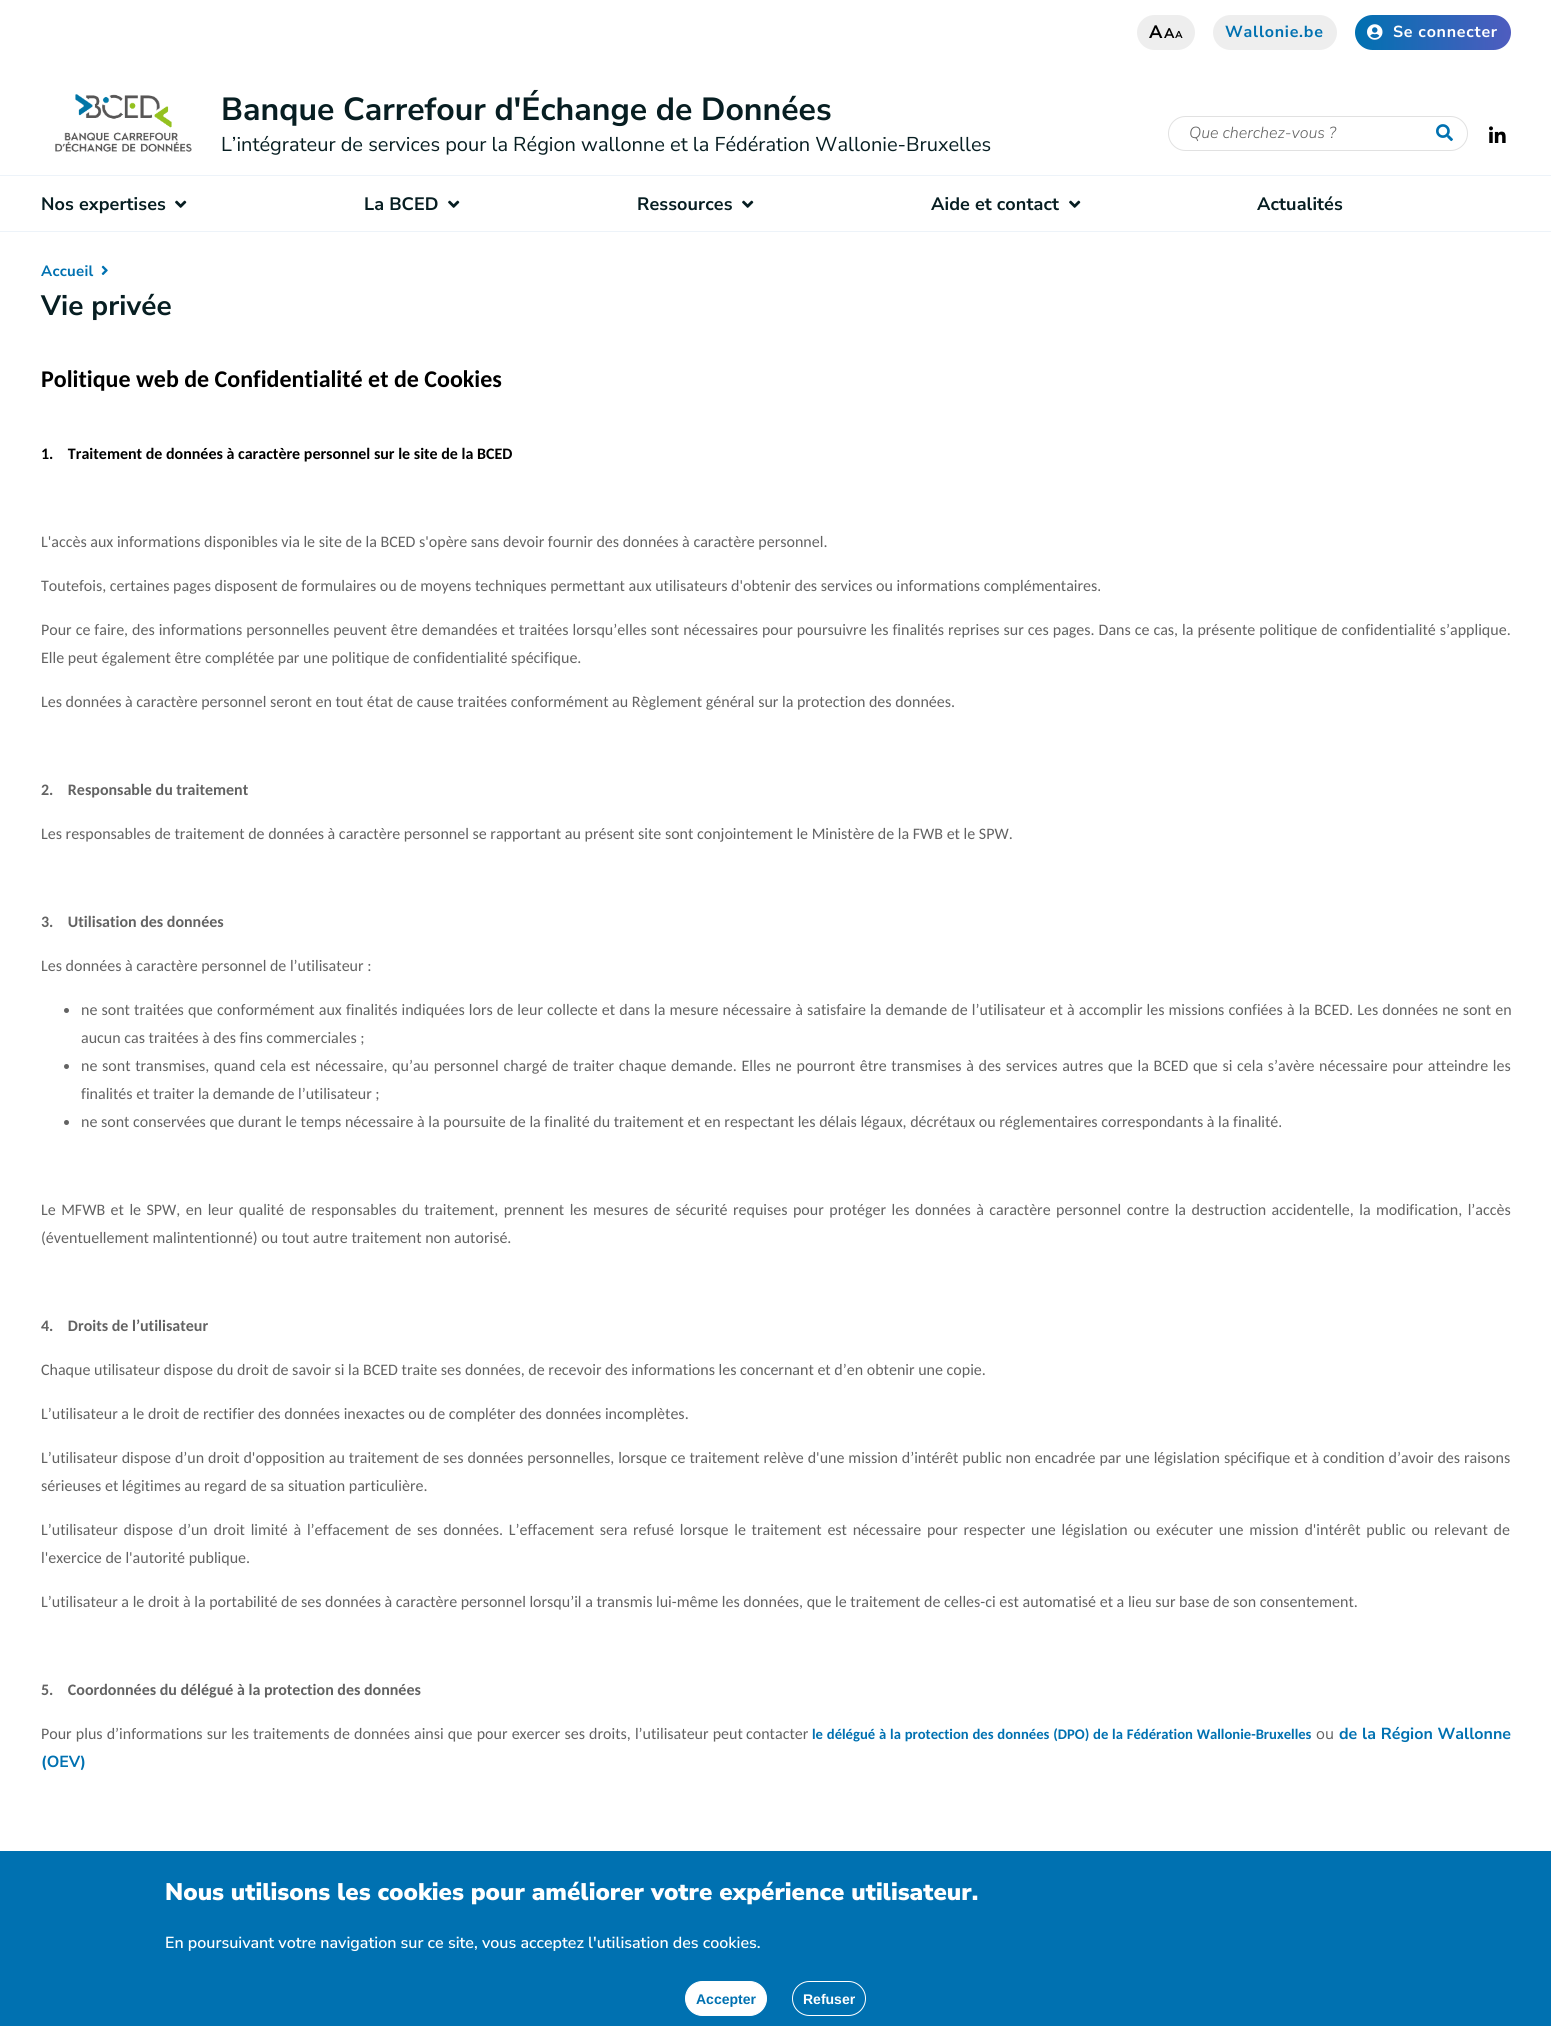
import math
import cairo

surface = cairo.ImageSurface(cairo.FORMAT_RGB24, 1551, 2026)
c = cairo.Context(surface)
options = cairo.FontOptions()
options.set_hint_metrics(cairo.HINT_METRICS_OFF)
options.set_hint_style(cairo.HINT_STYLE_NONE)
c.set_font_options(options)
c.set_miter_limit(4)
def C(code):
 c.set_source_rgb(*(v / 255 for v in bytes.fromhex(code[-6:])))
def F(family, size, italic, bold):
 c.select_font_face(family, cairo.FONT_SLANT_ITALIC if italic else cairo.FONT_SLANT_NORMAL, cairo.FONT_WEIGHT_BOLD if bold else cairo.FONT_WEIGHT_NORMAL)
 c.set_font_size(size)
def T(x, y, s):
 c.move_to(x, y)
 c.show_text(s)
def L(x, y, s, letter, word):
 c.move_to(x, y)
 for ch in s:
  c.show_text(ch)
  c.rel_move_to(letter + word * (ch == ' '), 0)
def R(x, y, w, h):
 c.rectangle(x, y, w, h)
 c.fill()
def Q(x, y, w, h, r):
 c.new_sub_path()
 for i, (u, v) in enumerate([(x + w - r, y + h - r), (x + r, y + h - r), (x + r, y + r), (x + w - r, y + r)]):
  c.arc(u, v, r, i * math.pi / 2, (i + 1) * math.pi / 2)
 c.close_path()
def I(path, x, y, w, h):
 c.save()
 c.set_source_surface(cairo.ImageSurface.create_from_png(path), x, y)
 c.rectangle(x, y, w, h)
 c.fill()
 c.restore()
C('ffffff')
c.paint()
C('eeeeee')
Q(1137,15,58,35,17.5)
c.fill()
F('Nunito Sans',18,0,1)
C('000000')
L(1149,38,'A',.75,0)
F('Nunito Sans',14,0,1)
L(1164,38,'A',.75,0)
F('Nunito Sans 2',10,0,1)
L(1175,38,'A',.75,0)
C('eeeeee')
Q(1213,15,124,35,17.5)
c.fill()
F('Nunito Sans',16,0,1)
C('0071b1')
L(1225,37,'Wallonie.be',.75,0)
gradient = cairo.LinearGradient(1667,32,1355,33)
gradient.add_color_stop_rgba(0,0.153,0.169,0.859,1)
gradient.add_color_stop_rgba(.5,0.31,0.361,0.749,1)
gradient.add_color_stop_rgba(1,0,0.443,0.694,1)
c.set_source(gradient)
Q(1355,15,156,35,17.5)
c.fill()
I('1.png',1367,24,16,16)
C('ffffff')
L(1393,37,'Se connecter',.75,0)
I('2.png',55,94,137,58)
F('Nunito Sans',32,0,1)
C('071e22')
T(221,120,'Banque Carrefour d\'Échange de Données')
F('Nunito Sans',20,0,0)
T(221,151,'L’intégrateur de services pour la Région wallonne et la Fédération Wallonie-Bruxelles')
Q(1168.5,116.5,299,34,17)
C('e1e1e1')
c.set_line_width(1)
c.stroke()
F('Nunito Sans Light',16,1,0)
C('636363')
T(1189,138,'Que cherchez-vous ?')
I('3.png',1436,124,17,18)
I('4.png',1489,126,17,17)
C('edf3f9')
R(0,175,1551,1)
R(0,231,1551,1)
F('Nunito Sans',18,0,1)
C('071e22')
L(41,210,'Nos expertises',.1,0)
I('5.png',175,200,12,8)
L(364,210,'La BCED',.1,0)
I('5.png',448,200,12,8)
L(637,210,'Ressources',.1,0)
I('5.png',742,200,12,8)
L(931,210,'Aide et contact',.1,0)
I('5.png',1069,200,12,8)
L(1257,210,'Actualités',.1,0)
F('Nunito Sans',15,0,1)
C('0071b1')
L(41,276,'Accueil',.25,0)
I('6.png',101,265,7,10)
F('Nunito Sans',28,0,1)
C('071e22')
L(41,315,'Vie privée',.1,0)
F('Carlito',24,0,1)
C('000000')
T(41,387,'Politique web de Confidentialité et de Cookies')
F('Carlito',16,0,1)
T(41,459,'1.    Traitement de données à caractère personnel sur le site de la BCED')
F('Carlito',16,0,0)
C('636363')
T(41,547,'L\'accès aux informations disponibles via le site de la BCED s\'opère sans devoir fournir des données à caractère personnel.')
T(41,591,'Toutefois, certaines pages disposent de formulaires ou de moyens techniques permettant aux utilisateurs d\'obtenir des services ou informations complémentaires.')
L(41,635,'Pour ce faire, des informations personnelles peuvent être demandées et traitées lorsqu’elles sont nécessaires pour poursuivre les finalités reprises sur ces pages. Dans ce cas, la présente politique de confidentialité s’applique.',0,.35)
T(41,663,'Elle peut également être complétée par une politique de confidentialité spécifique.')
T(41,707,'Les données à caractère personnel seront en tout état de cause traitées conformément au Règlement général sur la protection des données.')
F('Carlito',16,0,1)
T(41,795,'2.    Responsable du traitement')
F('Carlito',16,0,0)
T(41,839,'Les responsables de traitement de données à caractère personnel se rapportant au présent site sont conjointement le Ministère de la FWB et le SPW.')
F('Carlito',16,0,1)
T(41,927,'3.    Utilisation des données')
F('Carlito',16,0,0)
T(41,971,'Les données à caractère personnel de l’utilisateur :')
c.new_path()
c.arc(66.5,1010.5,2.5,0,2 * math.pi)
c.fill()
L(81,1015,'ne sont traitées que conformément aux finalités indiquées lors de leur collecte et dans la mesure nécessaire à satisfaire la demande de l’utilisateur et à accomplir les missions confiées à la BCED. Les données ne sont en',0,.5)
T(81,1043,'aucun cas traitées à des fins commerciales ;')
c.new_path()
c.arc(66.5,1066.5,2.5,0,2 * math.pi)
c.fill()
L(81,1071,'ne sont transmises, quand cela est nécessaire, qu’au personnel chargé de traiter chaque demande. Elles ne pourront être transmises à des services autres que la BCED que si cela s’avère nécessaire pour atteindre les',0,1.05)
T(81,1099,'finalités et traiter la demande de l’utilisateur ;')
c.new_path()
c.arc(66.5,1122.5,2.5,0,2 * math.pi)
c.fill()
T(81,1127,'ne sont conservées que durant le temps nécessaire à la poursuite de la finalité du traitement et en respectant les délais légaux, décrétaux ou réglementaires correspondants à la finalité.')
L(41,1215,'Le MFWB et le SPW, en leur qualité de responsables du traitement, prennent les mesures de sécurité requises pour protéger les données à caractère personnel contre la destruction accidentelle, la modification, l’accès',0,1.85)
T(41,1243,'(éventuellement malintentionné) ou tout autre traitement non autorisé.')
F('Carlito',16,0,1)
T(41,1331,'4.    Droits de l’utilisateur')
F('Carlito',16,0,0)
T(41,1375,'Chaque utilisateur dispose du droit de savoir si la BCED traite ses données, de recevoir des informations les concernant et d’en obtenir une copie.')
T(41,1419,'L’utilisateur a le droit de rectifier des données inexactes ou de compléter des données incomplètes.')
L(41,1463,'L’utilisateur dispose d’un droit d\'opposition au traitement de ses données personnelles, lorsque ce traitement relève d\'une mission d’intérêt public non encadrée par une législation spécifique et à condition d’avoir des raisons',0,.3)
T(41,1491,'sérieuses et légitimes au regard de sa situation particulière.')
L(41,1535,'L’utilisateur dispose d’un droit limité à l’effacement de ses données. L’effacement sera refusé lorsque le traitement est nécessaire pour respecter une législation ou exécuter une mission d\'intérêt public ou relevant de',0,2.1)
T(41,1563,'l\'exercice de l\'autorité publique.')
T(41,1607,'L’utilisateur a le droit à la portabilité de ses données à caractère personnel lorsqu’il a transmis lui-même les données, que le traitement de celles-ci est automatisé et a lieu sur base de son consentement.')
F('Carlito',16,0,1)
T(41,1695,'5.    Coordonnées du délégué à la protection des données')
F('Carlito',16,0,0)
L(41,1739,'Pour plus d’informations sur les traitements de données ainsi que pour exercer ses droits, l’utilisateur peut',0,.5)
T(746,1739,'contacter')
F('Carlito',14.65,0,1)
C('0071b1')
L(812,1739,'le délégué à la protection des données (DPO) de la Fédération Wallonie-Bruxelles',0,.5)
F('Nunito Sans',16,0,0)
C('636363')
T(1316,1739,'ou')
F('Nunito Sans',16,0,1)
C('0071b1')
L(1339,1739,'de la Région Wallonne',0,.5)
T(41,1767,'(OEV)')
R(0,1851,1551,175)
F('Nunito Sans Black',24,0,0)
C('ffffff')
T(165,1900,'Nous utilisons les cookies pour améliorer votre expérience utilisateur.')
F('Nunito Sans SemiBold',16,0,0)
T(165,1948,'En poursuivant votre navigation sur ce site, vous acceptez l\'utilisation des cookies.')
Q(685.5,1981.5,81,34,17)
c.fill_preserve()
c.stroke()
F('Liberation Sans',14,0,1)
C('0071b1')
T(696,2004,'Accepter')
Q(792.5,1981.5,73,34,17)
C('ffffff')
c.stroke()
T(803,2004,'Refuser')
surface.write_to_png('o.png')
